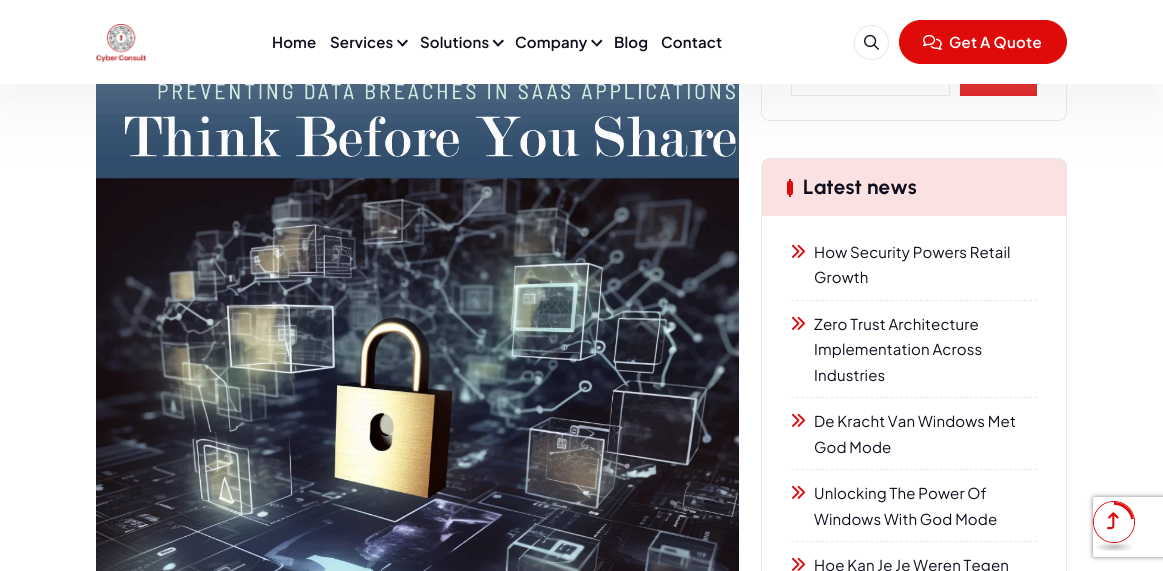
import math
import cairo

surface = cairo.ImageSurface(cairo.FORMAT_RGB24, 1163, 571)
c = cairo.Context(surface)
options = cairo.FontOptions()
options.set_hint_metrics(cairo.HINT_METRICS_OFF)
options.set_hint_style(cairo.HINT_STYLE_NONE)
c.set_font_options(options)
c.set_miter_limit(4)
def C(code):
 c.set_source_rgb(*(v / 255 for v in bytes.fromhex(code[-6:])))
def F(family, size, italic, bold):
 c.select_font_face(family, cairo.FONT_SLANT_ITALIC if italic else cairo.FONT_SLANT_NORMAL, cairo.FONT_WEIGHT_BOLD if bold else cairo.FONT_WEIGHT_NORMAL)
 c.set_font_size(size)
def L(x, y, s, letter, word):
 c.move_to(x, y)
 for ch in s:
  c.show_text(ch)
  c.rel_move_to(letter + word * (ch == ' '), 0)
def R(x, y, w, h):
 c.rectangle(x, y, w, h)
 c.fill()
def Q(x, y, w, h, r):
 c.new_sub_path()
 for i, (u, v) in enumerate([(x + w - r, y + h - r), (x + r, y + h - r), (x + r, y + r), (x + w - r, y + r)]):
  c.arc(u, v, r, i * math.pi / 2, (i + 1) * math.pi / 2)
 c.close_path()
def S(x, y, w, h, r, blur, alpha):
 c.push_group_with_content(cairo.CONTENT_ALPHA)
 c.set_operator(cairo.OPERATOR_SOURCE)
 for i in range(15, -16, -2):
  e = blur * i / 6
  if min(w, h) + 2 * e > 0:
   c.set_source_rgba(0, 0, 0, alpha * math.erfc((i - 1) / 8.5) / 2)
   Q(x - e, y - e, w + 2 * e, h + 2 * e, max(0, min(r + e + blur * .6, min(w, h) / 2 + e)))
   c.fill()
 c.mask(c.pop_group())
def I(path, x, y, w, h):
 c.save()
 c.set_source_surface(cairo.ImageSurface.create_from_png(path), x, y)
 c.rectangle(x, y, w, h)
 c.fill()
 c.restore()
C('ffffff')
c.paint()
I('4.png',96,84,643,487)
Q(761.5,.5,305,120,8.5)
C('e8e8e8')
c.set_line_width(1)
c.stroke()
c.rectangle(791.5,50.5,158,45)
C('e7e7e7')
c.stroke()
C('df0a0a')
R(960,84,77,12)
Q(761.5,158.5,305,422,8.5)
C('e8e8e8')
c.stroke()
c.set_source_rgba(0.875,0.039,0.039,0.12)
c.new_path()
c.move_to(770,159)
c.line_to(1058,159)
c.curve_to(1062.5,159,1066,162.5,1066,167)
c.line_to(1066,216)
c.line_to(762,216)
c.line_to(762,167)
c.curve_to(762,162.5,765.5,159,770,159)
c.close_path()
c.fill()
C('df0a0a')
Q(787,181,6,14,2)
c.fill()
R(789,179,2,18)
C('c7ceda')
S(0,24,1163,84,0,32,.25)
C('ffffff')
R(0,0,1163,84)
I('1.png',96,24,50,38)
F('Plus Jakarta Sans SemiBold',15,0,0)
C('0f0d1d')
L(272,48,'Home',.15,0)
L(330,48,'Services',.15,0)
c.new_path()
c.move_to(406.5,39.5)
c.line_to(408,41)
c.line_to(402.5,46.5)
c.line_to(401,45.5)
c.close_path()
c.fill()
c.new_path()
c.move_to(398,39.5)
c.line_to(404,45.5)
c.line_to(402.5,46.5)
c.line_to(397,41)
c.close_path()
c.fill()
L(420,48,'Solutions',.15,0)
c.new_path()
c.move_to(502.5,39.5)
c.line_to(504,41)
c.line_to(498,46.5)
c.line_to(496.5,45.5)
c.close_path()
c.fill()
c.new_path()
c.move_to(494,39.5)
c.line_to(499.5,45.5)
c.line_to(498,46.5)
c.line_to(492.5,41)
c.close_path()
c.fill()
L(515,48,'Company',.15,0)
c.new_path()
c.move_to(601,39.5)
c.line_to(602.5,41)
c.line_to(597,46.5)
c.line_to(595.5,45.5)
c.close_path()
c.fill()
c.new_path()
c.move_to(592.5,39.5)
c.line_to(598,45.5)
c.line_to(597,46.5)
c.line_to(591,41)
c.close_path()
c.fill()
L(614,48,'Blog',.15,0)
L(661,48,'Contact',.15,0)
I('2.png',864,34,15,16)
c.arc(871.5,42.5,17,0,2 * math.pi)
C('e8e8e8')
c.stroke()
C('df0a0a')
Q(899.5,20.5,167,43,21.5)
c.fill_preserve()
c.stroke()
I('3.png',923,34,19,16)
C('ffffff')
L(949,48,'Get A Quote',.25,0)
F('Urbanist',20.5,0,1)
C('0f0d1d')
L(803,194,'Latest news',.15,0)
c.new_path()
c.move_to(791,300.5)
c.line_to(1037,300.5)
C('e8e8e8')
c.set_dash([3,1.96])
c.stroke()
I('5.png',792,244,13,14)
F('Plus Jakarta Sans',15,0,0)
C('0f0d1d')
L(814,258,'How Security Powers Retail',.15,0)
L(814,283,'Growth',.15,0)
c.new_path()
c.move_to(791,397.5)
c.line_to(1037,397.5)
C('e8e8e8')
c.stroke()
I('5.png',792,316,13,14)
C('0f0d1d')
L(814,330,'Zero Trust Architecture',.15,0)
L(814,355,'Implementation Across',.15,0)
L(814,381,'Industries',.15,0)
c.new_path()
c.move_to(791,469.5)
c.line_to(1037,469.5)
C('e8e8e8')
c.stroke()
I('5.png',792,413,13,14)
C('0f0d1d')
L(814,427,'De Kracht Van Windows Met',.15,0)
L(814,453,'God Mode',.15,0)
c.new_path()
c.move_to(791,541.5)
c.line_to(1037,541.5)
C('e8e8e8')
c.stroke()
I('5.png',792,485,13,14)
C('0f0d1d')
L(814,499,'Unlocking The Power Of',.15,0)
L(814,525,'Windows With God Mode',.15,0)
I('5.png',792,557,13,14)
L(814,571,'Hoe Kan Je Je Weren Tegen',.15,0)
c.save()
c.set_fill_rule(cairo.FILL_RULE_EVEN_ODD)
c.new_path()
c.move_to(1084,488)
c.line_to(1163,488)
c.line_to(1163,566)
c.line_to(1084,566)
c.close_path()
c.move_to(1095,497)
c.line_to(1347,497)
c.curve_to(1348,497,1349,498,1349,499)
c.line_to(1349,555)
c.curve_to(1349,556,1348,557,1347,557)
c.line_to(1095,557)
c.curve_to(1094,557,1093,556,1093,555)
c.line_to(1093,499)
c.curve_to(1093,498,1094,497,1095,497)
c.close_path()
c.clip()
C('808080')
S(1093,497,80,60,2,2.5,1)
c.restore()
c.arc(1114,522,20.5,0,2 * math.pi)
C('df0a0a')
c.set_dash([])
c.stroke()
C('ffffff')
c.arc(1114,522,20,0,2 * math.pi)
c.fill()
c.save()
Q(1094,502,40,40,20)
c.clip()
c.new_path()
c.move_to(1114,503)
c.curve_to(1123.5,503,1131.5,510,1133,519)
C('df0a0a')
c.set_line_width(3.7)
c.stroke()
c.restore()
I('6.png',1107,512,12,18)
gradient = cairo.RadialGradient(0,0,0,0,0,1)
gradient.set_matrix(cairo.Matrix(1 / 25, 0, 0, 1 / 6.4, -1 * 1114 / 25, -1 * 547 / 6.4))
gradient.add_color_stop_rgba(0,0,0,0,.25)
gradient.add_color_stop_rgba(.8,0,0,0,0)
c.set_source(gradient)
R(1096,542,36,9)
surface.write_to_png('o.png')
